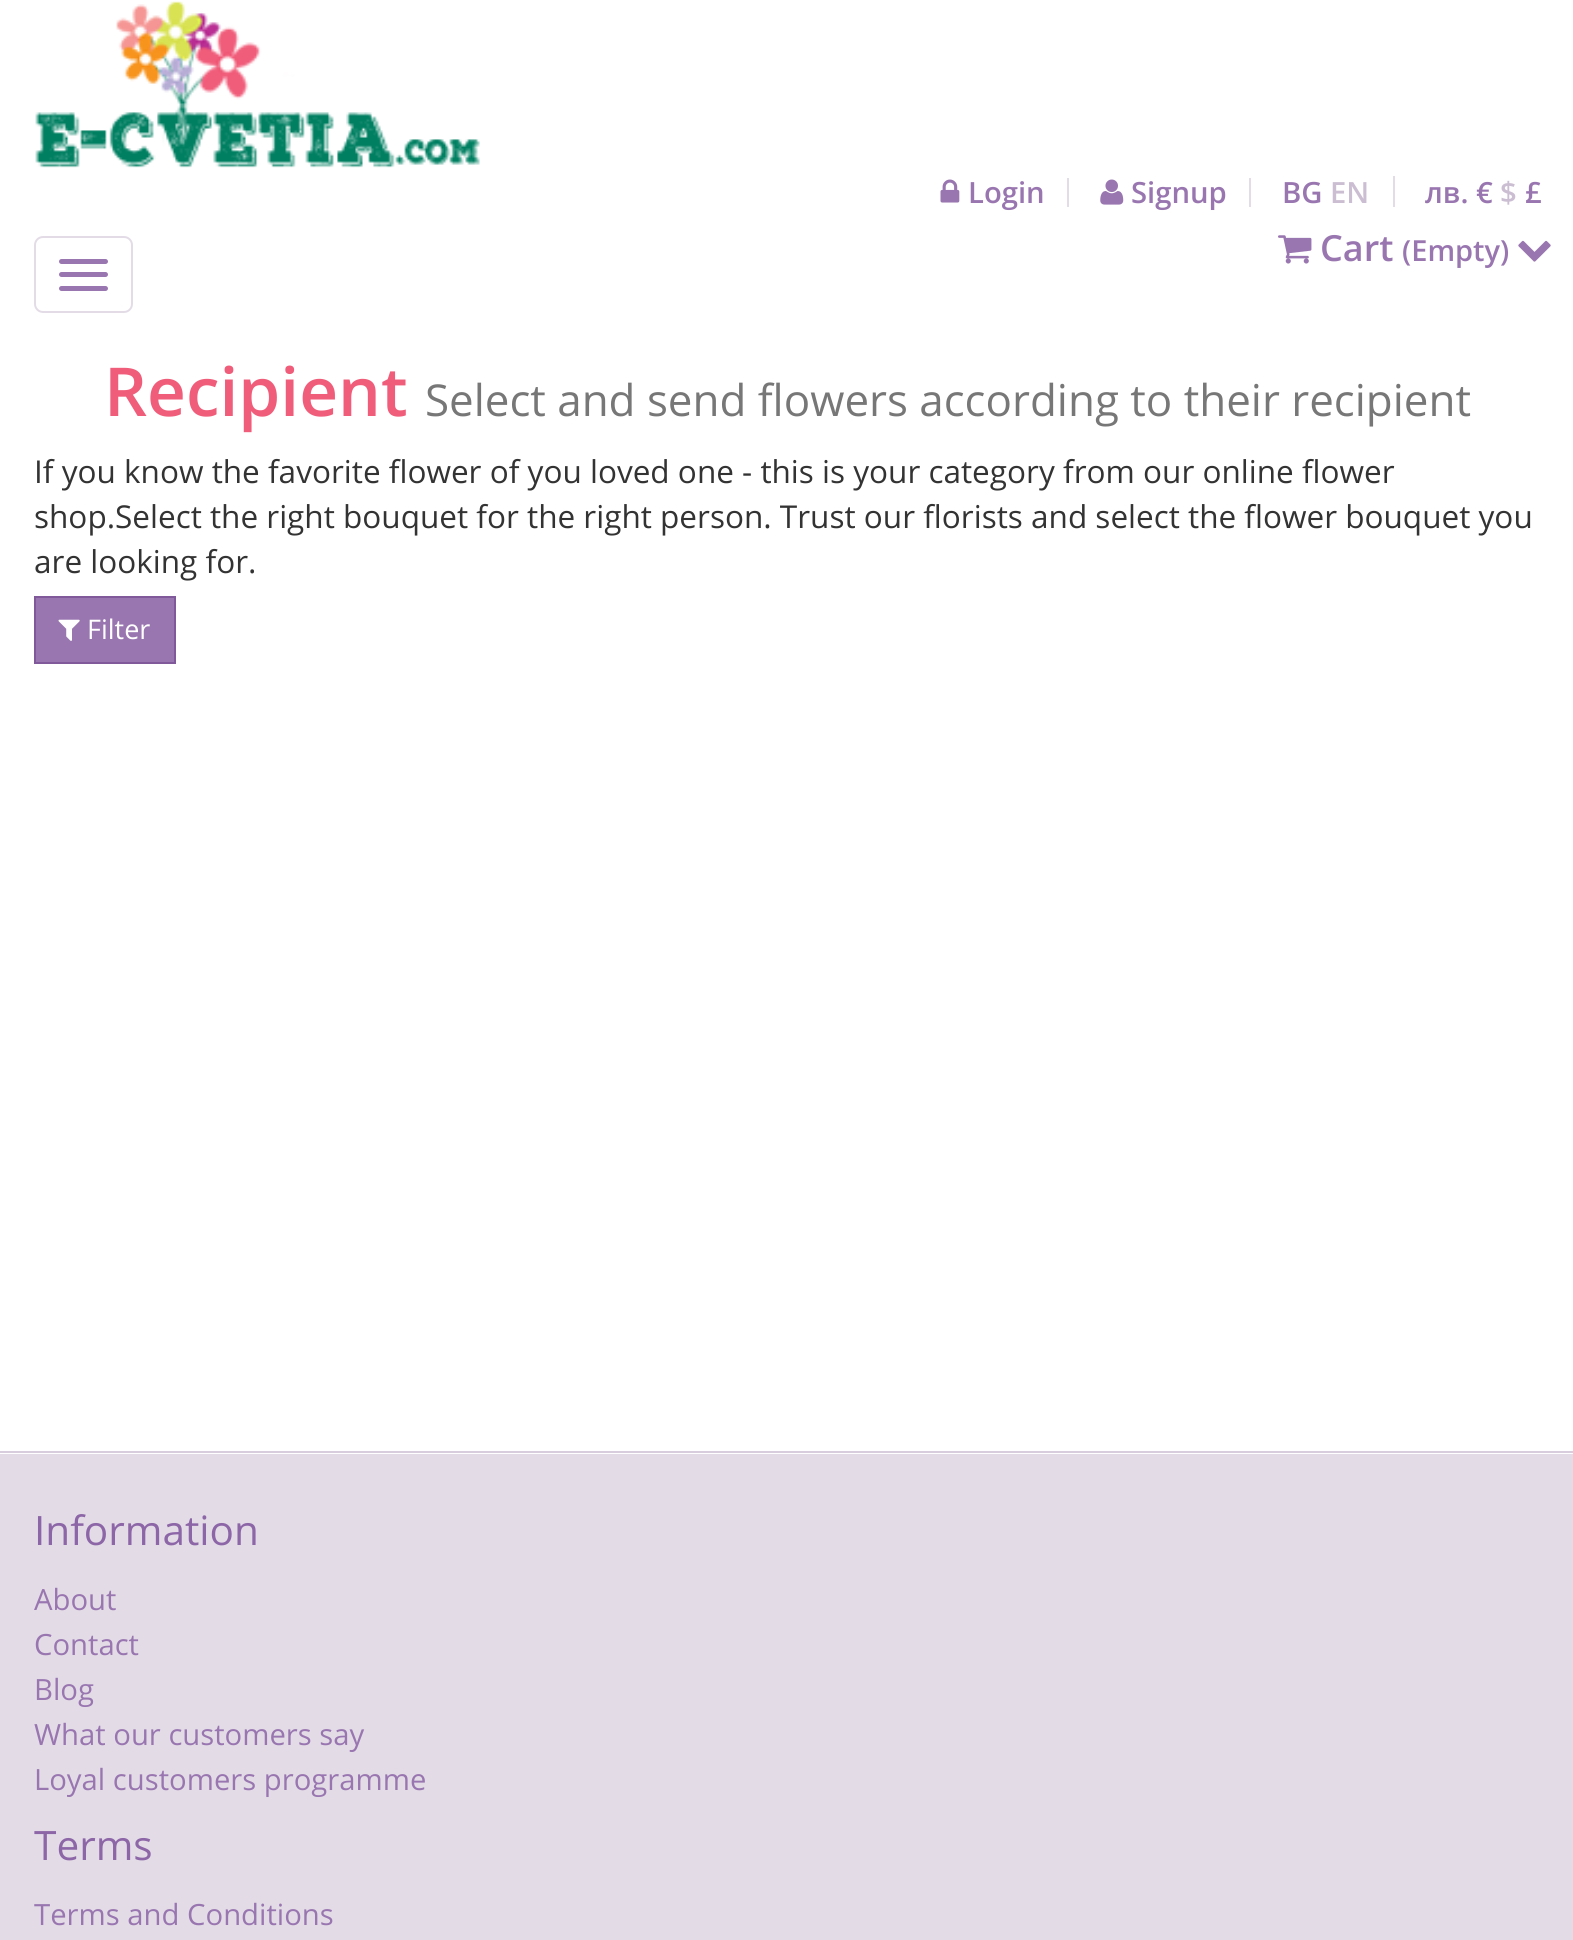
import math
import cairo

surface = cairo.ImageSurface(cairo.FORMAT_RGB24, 1573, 1940)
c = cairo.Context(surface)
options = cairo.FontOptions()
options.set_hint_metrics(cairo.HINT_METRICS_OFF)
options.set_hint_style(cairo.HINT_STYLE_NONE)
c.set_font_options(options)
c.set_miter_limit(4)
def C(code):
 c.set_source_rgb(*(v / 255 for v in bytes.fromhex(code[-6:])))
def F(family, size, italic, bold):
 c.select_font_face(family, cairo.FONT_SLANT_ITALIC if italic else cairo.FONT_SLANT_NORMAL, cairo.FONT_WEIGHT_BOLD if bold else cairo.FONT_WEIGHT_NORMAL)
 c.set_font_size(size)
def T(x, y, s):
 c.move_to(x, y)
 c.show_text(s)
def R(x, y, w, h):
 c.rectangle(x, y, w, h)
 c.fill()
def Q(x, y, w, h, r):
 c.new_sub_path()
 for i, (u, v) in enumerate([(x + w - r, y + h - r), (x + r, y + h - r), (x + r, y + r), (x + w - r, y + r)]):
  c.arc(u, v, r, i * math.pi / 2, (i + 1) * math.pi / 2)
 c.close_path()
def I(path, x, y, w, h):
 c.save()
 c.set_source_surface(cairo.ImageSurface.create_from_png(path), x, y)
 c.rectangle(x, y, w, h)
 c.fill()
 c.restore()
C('ffffff')
c.paint()
Q(35,237,97,75,8)
C('e3dce7')
c.stroke()
C('9976b0')
Q(59,259,49,5,2.5)
c.fill()
Q(59,272,49,5,2.5)
c.fill()
Q(59,286,49,5,2.5)
c.fill()
I('1.png',35,1,445,167)
C('e3dce7')
R(1067,178,2,29)
I('2.png',940,179,20,24)
F('Open Sans SemiBold',29.25,0,0)
C('9976b0')
T(968,203,'Login')
C('e3dce7')
R(1249,178,2,29)
I('3.png',1100,179,24,26)
C('9976b0')
T(1131,203,'Signup')
C('e3dce7')
R(1393,176,2,31)
C('9976b0')
T(1282,203,'BG')
C('cbbed2')
T(1330,203,'EN')
C('9976b0')
T(1425,203,'лв. €')
C('cbbed2')
T(1500,203,'$')
C('9976b0')
T(1525,203,'£')
I('4.png',1278,235,34,29)
F('Open Sans SemiBold',36,0,0)
T(1320,261,'Cart')
F('Open Sans SemiBold',29,0,0)
T(1402,261,'(Empty)')
I('5.png',1518,240,33,22)
F('Open Sans SemiBold',67.5,0,0)
C('f05d7a')
T(104,416,'Recipient')
F('Open Sans',43.9,0,0)
C('777777')
T(425,416,'Select and send flowers according to their recipient')
F('Open Sans',31.5,0,0)
C('333333')
T(34,483,'If you know the favorite flower of you loved one - this is your category from our online flower')
T(34,528,'shop.Select the right bouquet for the right person. Trust our florists and select the flower bouquet you')
T(34,573,'are looking for.')
C('9976b0')
c.rectangle(35,597,140,66)
c.fill_preserve()
C('80599a')
c.stroke()
I('6.png',58,619,22,22)
F('Open Sans',27,0,0)
C('ffffff')
T(87,639,'Filter')
C('d7cddd')
R(0,1451,1573,2)
C('e3dce7')
R(0,1454,1573,486)
F('Open Sans',40.5,0,0)
C('8d66a7')
T(34,1545,'Information')
F('Open Sans',29.25,0,0)
C('9976b0')
T(34,1610,'About')
T(34,1655,'Contact')
T(34,1700,'Blog')
T(34,1745,'What our customers say')
T(34,1790,'Loyal customers programme')
F('Open Sans',40.5,0,0)
C('8d66a7')
T(34,1860,'Terms')
F('Open Sans',29.25,0,0)
C('9976b0')
T(34,1925,'Terms and Conditions')
surface.write_to_png('o.png')
